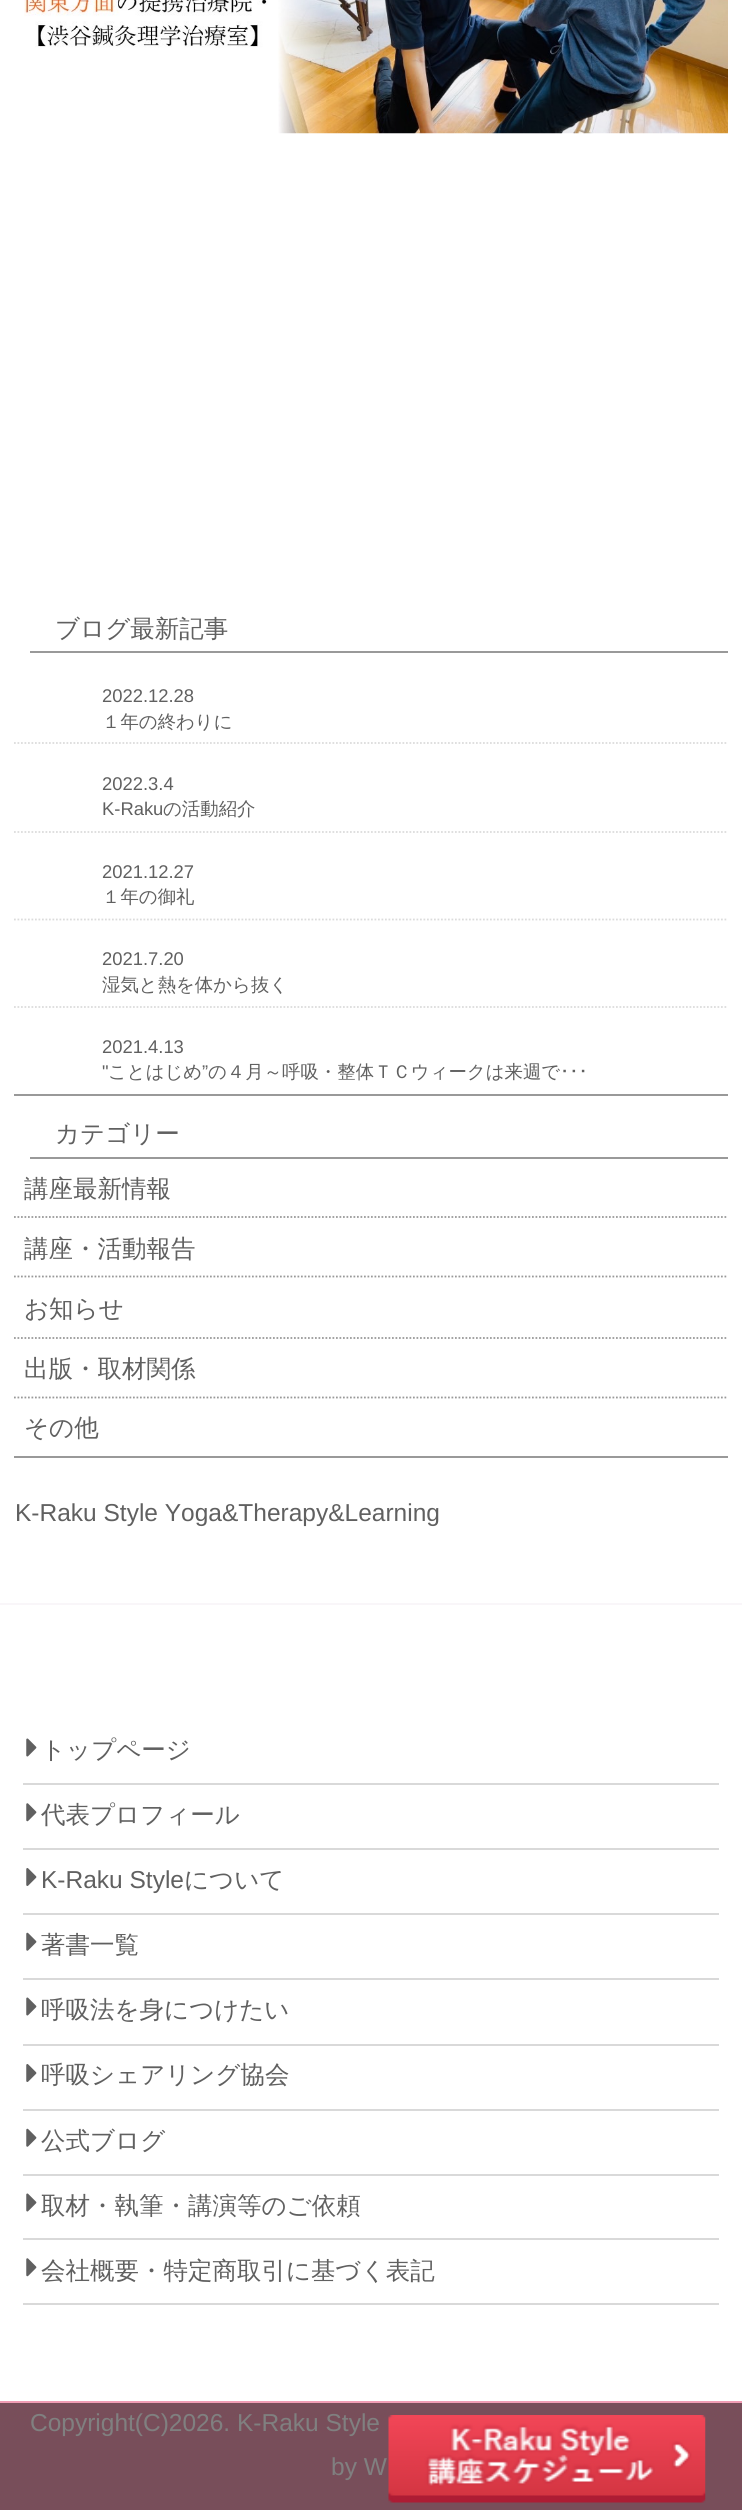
import math
import cairo

surface = cairo.ImageSurface(cairo.FORMAT_RGB24, 742, 2510)
c = cairo.Context(surface)
options = cairo.FontOptions()
options.set_hint_metrics(cairo.HINT_METRICS_OFF)
options.set_hint_style(cairo.HINT_STYLE_NONE)
c.set_font_options(options)
c.set_miter_limit(4)
def C(code):
 c.set_source_rgb(*(v / 255 for v in bytes.fromhex(code[-6:])))
def F(family, size, italic, bold):
 c.select_font_face(family, cairo.FONT_SLANT_ITALIC if italic else cairo.FONT_SLANT_NORMAL, cairo.FONT_WEIGHT_BOLD if bold else cairo.FONT_WEIGHT_NORMAL)
 c.set_font_size(size)
def T(x, y, s):
 c.move_to(x, y)
 c.show_text(s)
def R(x, y, w, h):
 c.rectangle(x, y, w, h)
 c.fill()
def I(path, x, y, w, h):
 c.save()
 c.set_source_surface(cairo.ImageSurface.create_from_png(path), x, y)
 c.rectangle(x, y, w, h)
 c.fill()
 c.restore()
C('ffffff')
c.paint()
I('1.png',24,0,704,134)
C('999999')
R(30,651,698,2)
F('WenQuanYi Zen Hei Medium',24.5,0,0)
C('606060')
T(55,637,'ブログ最新記事')
c.new_path()
c.move_to(14,743)
c.line_to(728,743)
C('dbdbdb')
c.set_line_width(1.8)
c.set_dash([1.75,1.75])
c.stroke()
F('Liberation Sans',18.4,0,0)
C('606060')
T(102,702,'2022.12.28')
F('WenQuanYi Zen Hei Medium',18.4,0,0)
T(102,728,'１年の終わりに')
c.new_path()
c.move_to(14,832)
c.line_to(728,832)
C('dbdbdb')
c.stroke()
F('Liberation Sans',18.4,0,0)
C('606060')
T(102,790,'2022.3.4')
T(102,815,'K-Raku')
F('WenQuanYi Zen Hei Medium',18.4,0,0)
T(163,815,'の活動紹介')
c.new_path()
c.move_to(14,919.5)
c.line_to(728,919.5)
C('dbdbdb')
c.stroke()
F('Liberation Sans',18.4,0,0)
C('606060')
T(102,878,'2021.12.27')
F('WenQuanYi Zen Hei Medium',18.4,0,0)
T(102,903,'１年の御礼')
c.new_path()
c.move_to(14,1007)
c.line_to(728,1007)
C('dbdbdb')
c.stroke()
F('Liberation Sans',18.4,0,0)
C('606060')
T(102,965,'2021.7.20')
F('WenQuanYi Zen Hei Medium',18.4,0,0)
T(102,991,'湿気と熱を体から抜く')
C('999999')
R(14,1094,714,2)
F('Liberation Sans',18.4,0,0)
C('606060')
T(102,1053,'2021.4.13')
T(102,1078,'"')
F('WenQuanYi Zen Hei Medium',18.4,0,0)
T(108,1078,'ことはじめ')
F('Liberation Sans',18.4,0,0)
T(202,1078,'”')
F('WenQuanYi Zen Hei Medium',18.4,0,0)
T(208,1078,'の４月～呼吸・整体ＴＣウィークは来週で')
F('IPAPGothic',18.4,0,0)
T(560,1078,'･･･')
C('999999')
R(30,1157,698,2)
F('WenQuanYi Zen Hei Medium',24.5,0,0)
C('606060')
T(55,1142,'カテゴリー')
c.new_path()
c.move_to(14,1217)
c.line_to(728,1217)
C('999999')
c.stroke()
C('606060')
T(24,1197,'講座最新情報')
c.new_path()
c.move_to(14,1276.5)
c.line_to(728,1276.5)
C('999999')
c.stroke()
C('606060')
T(24,1257,'講座・活動報告')
c.new_path()
c.move_to(14,1338)
c.line_to(728,1338)
C('999999')
c.stroke()
C('606060')
T(24,1317,'お知らせ')
c.new_path()
c.move_to(14,1397.5)
c.line_to(728,1397.5)
C('999999')
c.stroke()
C('606060')
T(24,1377,'出版・取材関係')
C('999999')
R(14,1456,714,2)
C('606060')
T(24,1436,'その他')
F('Liberation Sans',24.5,0,0)
T(15,1521,'K-Raku Style Yoga&Therapy&Learning')
C('f9f6f9')
R(0,1603,742,2)
C('d9d9d9')
R(23,1783,696,2)
I('2.png',26,1738,11,19)
F('WenQuanYi Zen Hei Medium',24.5,0,0)
C('606060')
T(41,1758,'トップページ')
C('d9d9d9')
R(23,1848,696,2)
I('3.png',26,1803,11,19)
C('606060')
T(41,1823,'代表プロフィール')
C('d9d9d9')
R(23,1913,696,2)
I('4.png',26,1868,11,18)
F('Liberation Sans',24.5,0,0)
C('606060')
T(41,1888,'K-Raku Style')
F('WenQuanYi Zen Hei Medium',24.5,0,0)
T(184,1888,'について')
C('d9d9d9')
R(23,1978,696,2)
I('5.png',26,1932,11,19)
C('606060')
T(41,1953,'著書一覧')
C('d9d9d9')
R(23,2044,696,2)
I('2.png',26,1997,11,19)
C('606060')
T(41,2018,'呼吸法を身につけたい')
C('d9d9d9')
R(23,2109,696,2)
I('4.png',26,2064,11,18)
C('606060')
T(41,2083,'呼吸シェアリング協会')
C('d9d9d9')
R(23,2174,696,2)
I('5.png',26,2128,11,19)
C('606060')
T(41,2149,'公式ブログ')
C('d9d9d9')
R(23,2238,696,2)
I('2.png',26,2193,11,19)
C('606060')
T(41,2214,'取材・執筆・講演等のご依頼')
C('d9d9d9')
R(23,2303,696,2)
I('3.png',26,2258,11,19)
C('606060')
T(41,2279,'会社概要・特定商取引に基づく表記')
C('f09cb4')
R(0,2401,742,2)
C('784e5a')
R(0,2403,742,107)
F('Liberation Sans',24.5,0,0)
C('808080')
T(30,2431,'Copyright(C)2026. K-Raku Style')
T(331,2475,'by W')
I('6.png',388,2415,318,88)
surface.write_to_png('o.png')
